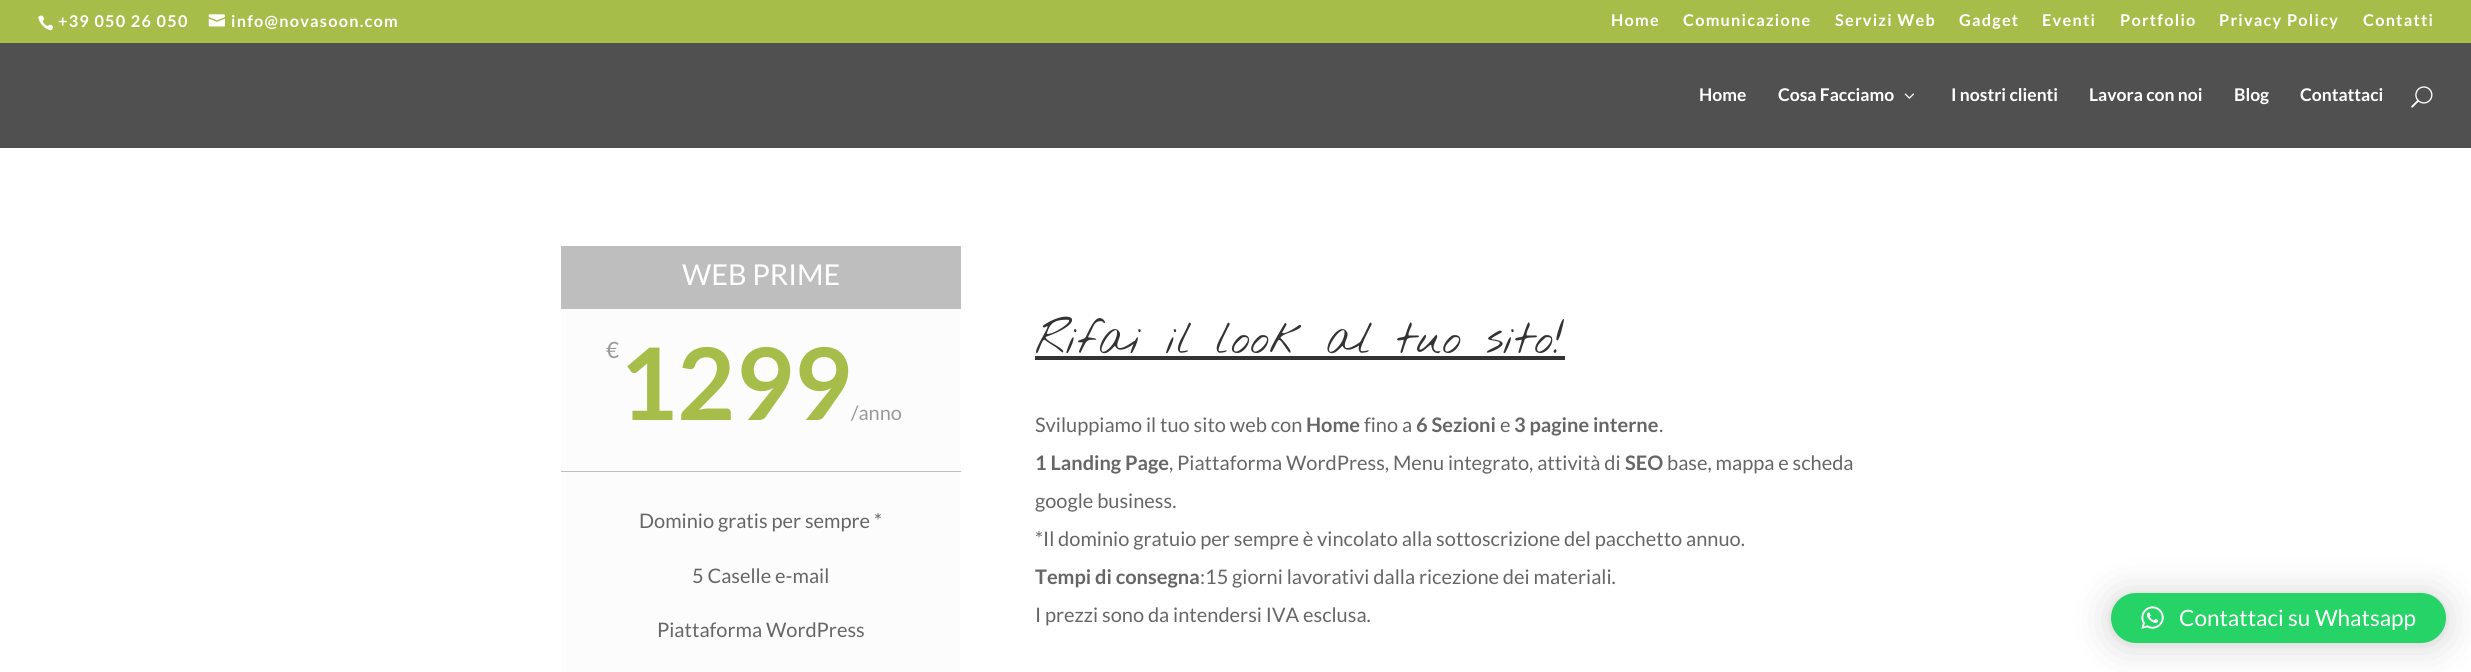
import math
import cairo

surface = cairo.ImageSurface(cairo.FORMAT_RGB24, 2471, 672)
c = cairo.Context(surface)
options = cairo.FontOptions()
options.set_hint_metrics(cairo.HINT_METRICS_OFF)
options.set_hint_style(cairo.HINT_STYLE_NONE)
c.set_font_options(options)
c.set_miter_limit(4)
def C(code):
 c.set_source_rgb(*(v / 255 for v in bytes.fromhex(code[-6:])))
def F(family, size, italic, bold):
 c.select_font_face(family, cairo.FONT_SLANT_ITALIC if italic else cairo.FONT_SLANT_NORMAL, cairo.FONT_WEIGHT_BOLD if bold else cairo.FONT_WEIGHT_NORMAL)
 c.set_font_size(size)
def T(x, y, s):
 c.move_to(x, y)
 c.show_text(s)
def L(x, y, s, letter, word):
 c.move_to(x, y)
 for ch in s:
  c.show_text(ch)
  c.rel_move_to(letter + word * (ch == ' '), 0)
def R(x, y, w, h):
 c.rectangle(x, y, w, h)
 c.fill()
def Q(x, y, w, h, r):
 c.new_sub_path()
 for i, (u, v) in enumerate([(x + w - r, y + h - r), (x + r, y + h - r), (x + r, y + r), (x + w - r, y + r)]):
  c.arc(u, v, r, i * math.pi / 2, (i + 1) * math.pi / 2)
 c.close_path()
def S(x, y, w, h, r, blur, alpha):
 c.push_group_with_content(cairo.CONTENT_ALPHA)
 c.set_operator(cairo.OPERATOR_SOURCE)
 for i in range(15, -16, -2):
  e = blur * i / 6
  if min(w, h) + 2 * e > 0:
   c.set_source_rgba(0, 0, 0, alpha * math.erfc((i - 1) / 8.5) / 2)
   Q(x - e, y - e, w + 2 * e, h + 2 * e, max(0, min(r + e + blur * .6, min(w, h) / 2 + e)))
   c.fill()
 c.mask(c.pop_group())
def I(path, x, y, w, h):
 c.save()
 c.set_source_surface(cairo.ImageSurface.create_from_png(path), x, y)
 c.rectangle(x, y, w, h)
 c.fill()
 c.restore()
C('ffffff')
c.paint()
C('a6bd4a')
R(0,0,2471,43)
I('1.png',38,15,15,16)
F('Lato',16.25,0,1)
C('ffffff')
L(58,27,'+39 050 26 050',1.25,0)
I('2.png',208,14,17,13)
L(231,27,'info@novasoon.com',1.25,0)
L(1611,26,'Home',1.25,0)
L(1683,26,'Comunicazione',1.25,0)
L(1835,26,'Servizi Web',1.25,0)
L(1959,26,'Gadget',1.25,0)
L(2042,26,'Eventi',1.25,0)
L(2120,26,'Portfolio',1.25,0)
L(2219,26,'Privacy Policy',1.25,0)
L(2363,26,'Contatti',1.25,0)
C('505050')
R(0,43,2471,105)
F('Lato',17.5,0,1)
C('ffffff')
T(1699,101,'Home')
T(1778,101,'Cosa Facciamo')
I('3.png',1904,93,10,6)
T(1951,101,'I nostri clienti')
T(2089,101,'Lavora con noi')
T(2234,101,'Blog')
T(2300,101,'Contattaci')
I('4.png',2411,86,22,22)
C('fcfcfc')
R(561,309,400,363)
C('bebebe')
R(561,246,400,63)
F('Lato',28.75,0,0)
C('ffffff')
T(682,285,'WEB PRIME')
C('bebebe')
R(561,471,400,1)
F('Lato',22.5,0,0)
C('999999')
T(606,358,'€')
F('Lato',100,0,1)
C('a6bd4a')
T(619,420,'1299')
F('Lato',20,0,0)
C('999999')
T(851,420,'/anno')
C('666666')
T(639,528,'Dominio gratis per sempre *')
T(692,583,'5 Caselle e-mail')
T(657,637,'Piattaforma WordPress')
F('Nothing You Could Do Thin',46,0,0)
C('333333')
T(1035,353,'Rifai il look al tuo sito!')
R(1035,356,530,4)
F('Lato',20,0,0)
C('666666')
T(1035,432,'Sviluppiamo il tuo sito web con')
F('Lato',20,0,1)
T(1306,432,'Home')
F('Lato',20,0,0)
T(1364,432,'fino a')
F('Lato',20,0,1)
T(1416,432,'6 Sezioni')
F('Lato',20,0,0)
T(1500,432,'e')
F('Lato',20,0,1)
T(1514,432,'3 pagine interne')
F('Lato',20,0,0)
T(1659,432,'.')
F('Lato',20,0,1)
T(1035,470,'1 Landing Page')
F('Lato',20,0,0)
T(1169,470,', Piattaforma WordPress, Menu integrato, attività di')
F('Lato',20,0,1)
T(1625,470,'SEO')
F('Lato',20,0,0)
T(1667,470,'base, mappa e scheda')
T(1035,508,'google business.')
T(1035,546,'*Il dominio gratuio per sempre è vincolato alla sottoscrizione del pacchetto annuo.')
F('Lato',20,0,1)
T(1035,584,'Tempi di consegna')
F('Lato',20,0,0)
T(1200,584,':15 giorni lavorativi dalla ricezione dei materiali.')
T(1035,622,'I prezzi sono da intendersi IVA esclusa.')
C('000000')
S(2111,595,335,50,25,20,.16)
S(2111,594,335,50,25,4,.06)
C('25d366')
Q(2111,593,335,50,25)
c.fill()
I('5.png',2141,606,23,23)
F('Lato',22.5,0,0)
C('ffffff')
T(2179,626,'Contattaci su Whatsapp')
surface.write_to_png('o.png')
